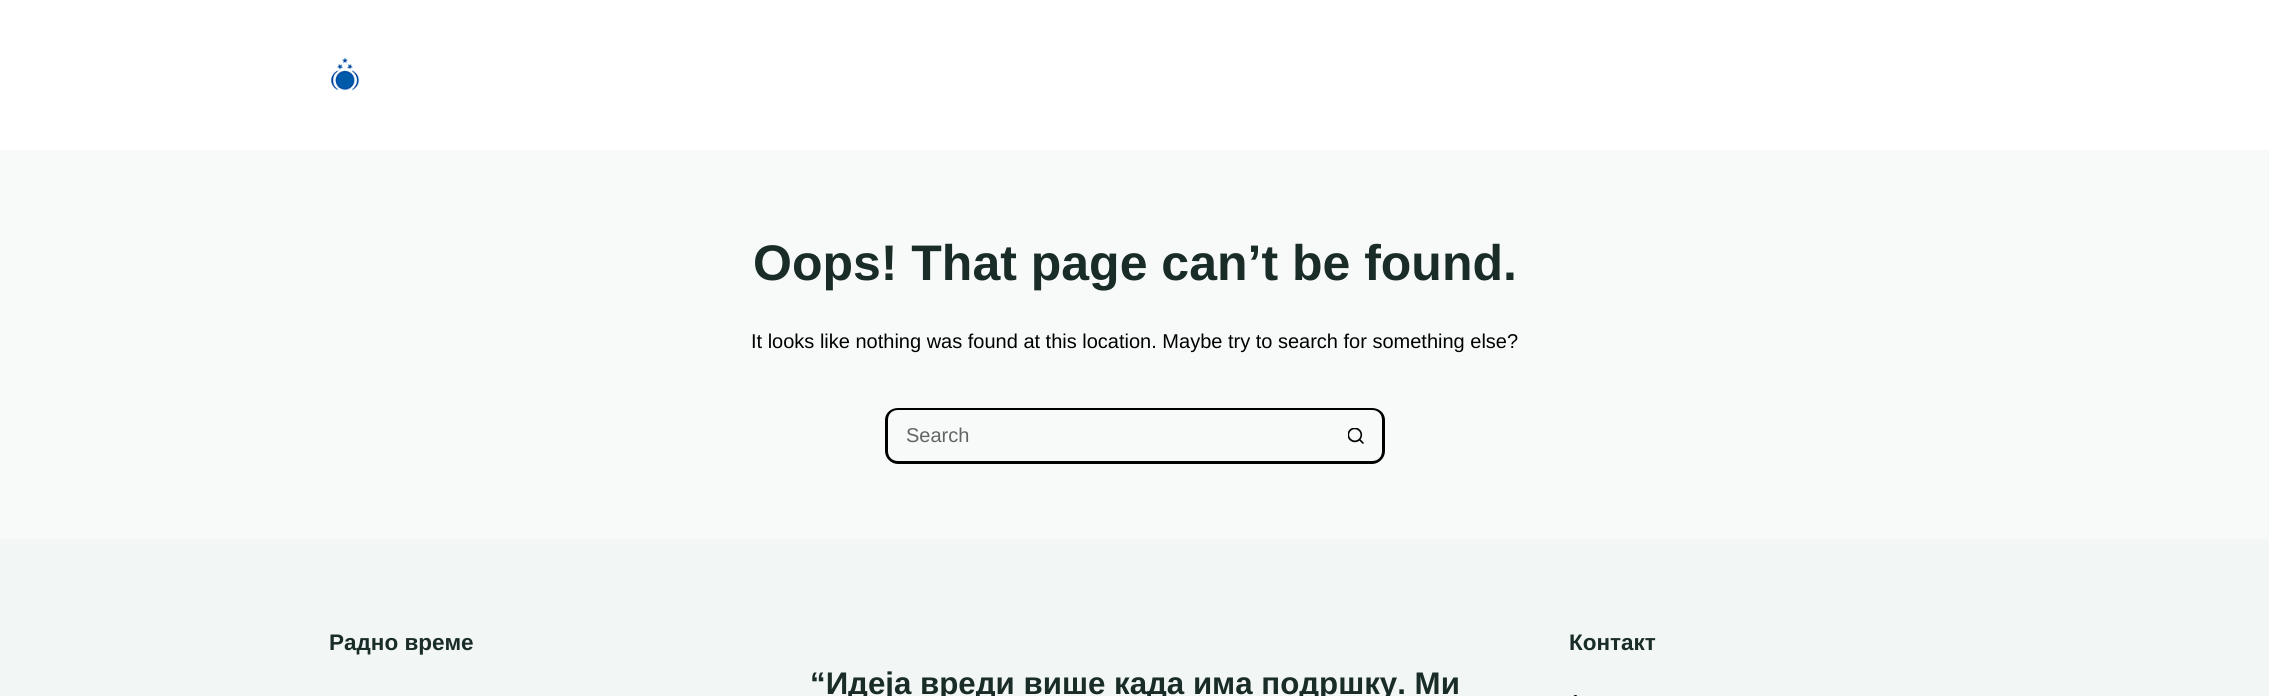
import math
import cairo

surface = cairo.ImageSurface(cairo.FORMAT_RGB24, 2269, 696)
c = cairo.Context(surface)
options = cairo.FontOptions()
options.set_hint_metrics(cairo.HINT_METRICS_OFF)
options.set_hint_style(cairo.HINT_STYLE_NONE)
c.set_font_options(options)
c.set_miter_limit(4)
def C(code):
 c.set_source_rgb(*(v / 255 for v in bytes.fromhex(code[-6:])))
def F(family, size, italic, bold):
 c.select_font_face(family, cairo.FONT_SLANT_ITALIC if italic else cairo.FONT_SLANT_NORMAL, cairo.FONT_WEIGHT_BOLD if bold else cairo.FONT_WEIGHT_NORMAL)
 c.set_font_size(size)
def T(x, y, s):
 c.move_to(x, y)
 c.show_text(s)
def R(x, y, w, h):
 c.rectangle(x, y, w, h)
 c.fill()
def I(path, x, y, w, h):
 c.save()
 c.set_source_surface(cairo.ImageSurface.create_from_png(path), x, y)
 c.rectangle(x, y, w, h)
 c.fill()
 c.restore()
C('f8fafa')
c.paint()
C('ffffff')
R(0,0,2269,150)
I('1.png',331,57,29,34)
F('Liberation Sans',50,0,1)
C('192c27')
T(753,280,'Oops! That page can’t be found.')
F('Liberation Sans',20,0,0)
C('000000')
T(751,348,'It looks like nothing was found at this location. Maybe try to search for something else?')
c.set_fill_rule(cairo.FILL_RULE_EVEN_ODD)
c.new_path()
c.move_to(898,408)
c.line_to(1329,408)
c.line_to(1329,464)
c.line_to(898,464)
c.curve_to(891,464,885,458,885,451)
c.line_to(885,420)
c.curve_to(885,413,891,408,898,408)
c.close_path()
c.move_to(898,410)
c.line_to(1329,410)
c.line_to(1329,461)
c.line_to(898,461)
c.curve_to(892,461,888,457,888,451)
c.line_to(888,420)
c.curve_to(888,414,892,410,898,410)
c.close_path()
c.fill()
C('636464')
T(906,442,'Search')
C('000000')
c.new_path()
c.move_to(1329,408)
c.line_to(1372,408)
c.curve_to(1379,408,1385,413,1385,420)
c.line_to(1385,451)
c.curve_to(1385,458,1379,464,1372,464)
c.line_to(1329,464)
c.close_path()
c.move_to(1329,410)
c.line_to(1372,410)
c.curve_to(1378,410,1382,414,1382,420)
c.line_to(1382,451)
c.curve_to(1382,457,1378,461,1372,461)
c.line_to(1329,461)
c.close_path()
c.fill()
I('2.png',1348,428,16,16)
C('f2f7f6')
R(0,539,2269,157)
F('Liberation Sans',22.5,0,1)
C('192c27')
T(329,650,'Радно време')
T(1569,650,'Контакт')
I('3.png',1573,695,5,1)
F('Liberation Sans',31.25,0,1)
T(810,694,'“Идеја вреди више када има подршку. Ми')
surface.write_to_png('o.png')
